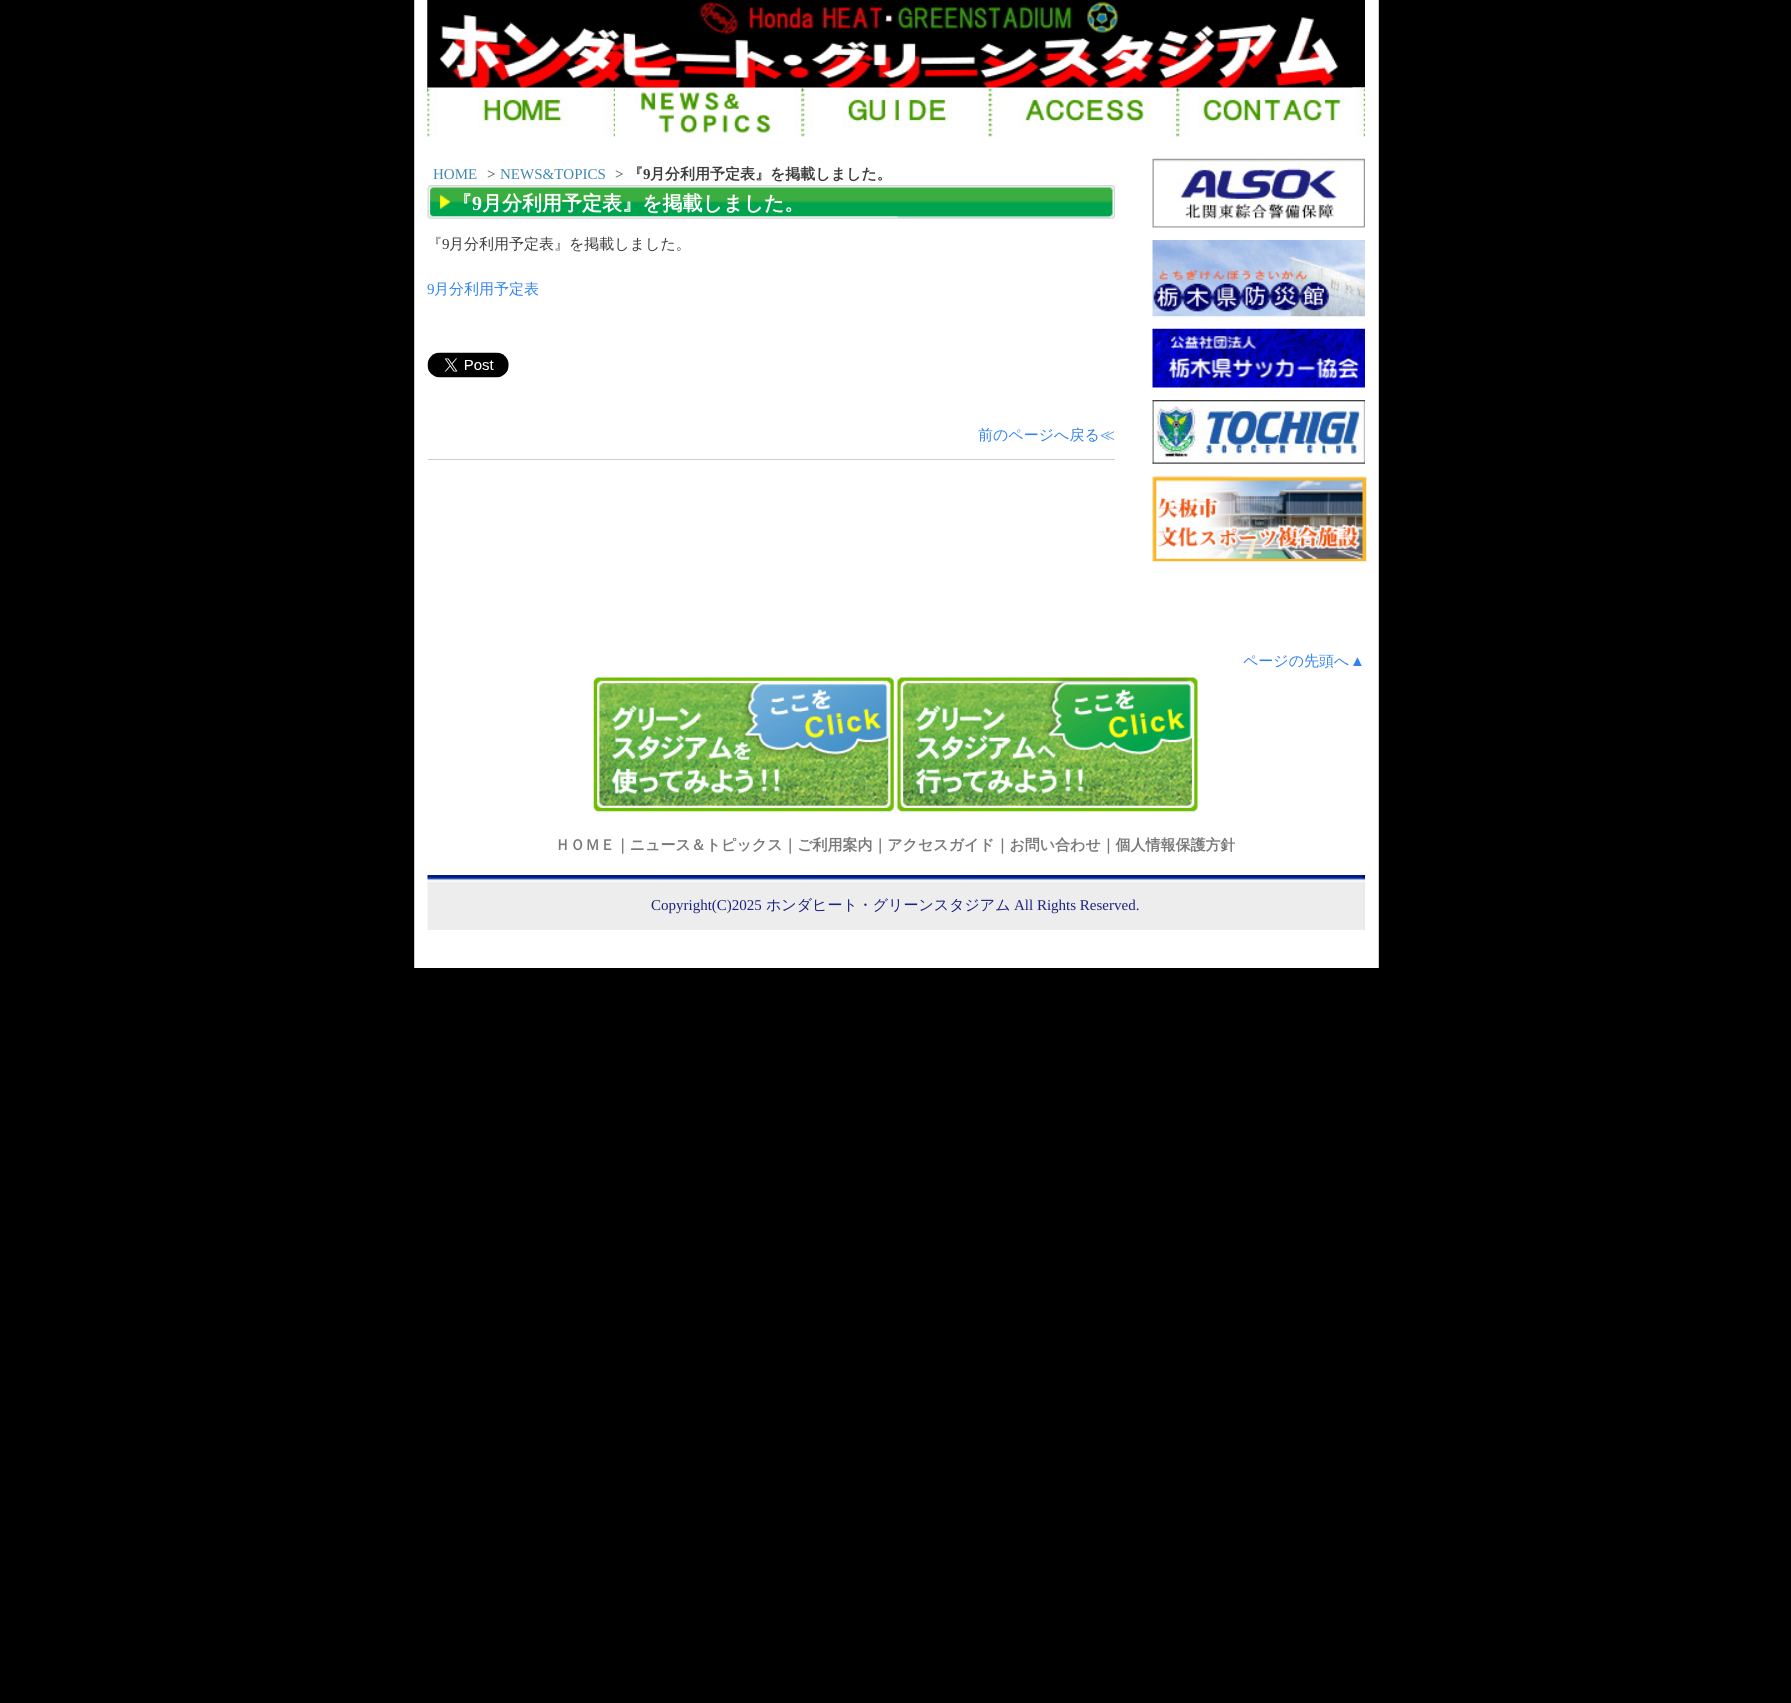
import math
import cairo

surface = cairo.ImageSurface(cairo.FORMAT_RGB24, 1791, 1703)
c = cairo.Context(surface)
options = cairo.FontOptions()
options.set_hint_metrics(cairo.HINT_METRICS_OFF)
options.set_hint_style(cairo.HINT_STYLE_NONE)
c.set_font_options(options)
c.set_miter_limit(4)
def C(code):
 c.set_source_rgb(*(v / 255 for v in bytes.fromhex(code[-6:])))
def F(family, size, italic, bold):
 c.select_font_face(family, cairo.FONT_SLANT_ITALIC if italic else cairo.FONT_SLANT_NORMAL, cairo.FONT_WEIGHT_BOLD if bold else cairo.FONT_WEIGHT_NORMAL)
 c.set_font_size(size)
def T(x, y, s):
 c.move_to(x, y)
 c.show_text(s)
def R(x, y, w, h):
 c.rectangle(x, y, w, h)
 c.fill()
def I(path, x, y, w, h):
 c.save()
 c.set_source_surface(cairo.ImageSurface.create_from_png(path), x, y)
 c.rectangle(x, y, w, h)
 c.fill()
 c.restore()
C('000000')
c.paint()
C('ffffff')
R(415,0,963,968)
C('cccccc')
R(1378,0,1,968)
R(414,0,1,968)
I('1.png',427,0,938,88)
I('2.png',427,0,926,93)
I('3.png',427,87,188,50)
I('4.png',615,87,188,50)
I('5.png',802,87,188,50)
I('6.png',990,87,188,51)
I('7.png',1177,87,188,50)
F('Liberation Serif',15,0,0)
C('3f88b1')
T(433,179,'HOME')
C('3c3c3c')
T(487,179,'>')
C('3f88b1')
T(500,179,'NEWS&TOPICS')
C('3c3c3c')
T(615,179,'>')
F('WenQuanYi Zen Hei',15,0,1)
T(628,179,'『')
F('Liberation Serif',15,0,1)
T(643,179,'9')
F('WenQuanYi Zen Hei',15,0,1)
T(650,179,'月分利用予定表』を掲載しました。')
I('8.png',427,185,688,34)
F('WenQuanYi Zen Hei',20,0,1)
C('ffffff')
T(452,210,'『')
F('Liberation Serif',20,0,1)
T(472,210,'9')
F('WenQuanYi Zen Hei',20,0,1)
T(482,210,'月分利用予定表』を掲載しました。')
F('WenQuanYi Zen Hei Medium',15,0,0)
C('3c3c3c')
T(427,249,'『')
F('Liberation Serif',15,0,0)
T(442,249,'9')
F('WenQuanYi Zen Hei Medium',15,0,0)
T(449,249,'月分利用予定表』を掲載しました。')
F('Liberation Serif',15,0,0)
C('3182f1')
T(427,294,'9')
F('WenQuanYi Zen Hei Medium',15,0,0)
T(434,294,'月分利用予定表')
I('9.png',427,352,82,26)
C('cccccc')
R(428,459,687,1)
C('3182f1')
T(978,440,'前のページへ戻る≪')
I('10.png',1152,158,213,70)
I('11.png',1152,240,213,77)
I('12.png',1152,328,213,60)
I('13.png',1152,400,213,64)
I('14.png',1152,476,215,86)
T(1243,666,'ページの先頭へ')
F('Liberation Serif',15,0,0)
T(1350,666,'▲')
I('15.png',593,677,301,135)
I('16.png',897,677,301,135)
F('WenQuanYi Zen Hei',15,0,1)
C('797979')
T(555,850,'ＨＯＭＥ｜ニュース＆トピックス｜ご利用案内｜アクセスガイド｜お問い合わせ｜個人情報保護方針')
I('17.png',427,875,938,55)
F('Liberation Serif',15,0,0)
C('1c237e')
T(651,910,'Copyright(C)2025')
F('WenQuanYi Zen Hei Medium',15,0,0)
T(766,910,'ホンダヒート・グリーンスタジアム')
F('Liberation Serif',15,0,0)
T(1014,910,'All Rights Reserved.')
surface.write_to_png('o.png')
